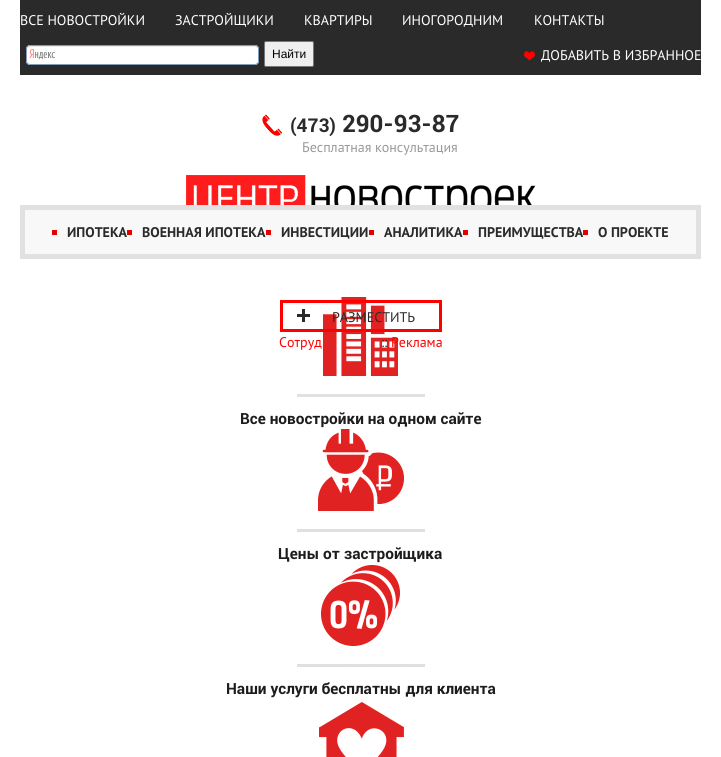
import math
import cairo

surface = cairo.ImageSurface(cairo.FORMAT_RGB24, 721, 757)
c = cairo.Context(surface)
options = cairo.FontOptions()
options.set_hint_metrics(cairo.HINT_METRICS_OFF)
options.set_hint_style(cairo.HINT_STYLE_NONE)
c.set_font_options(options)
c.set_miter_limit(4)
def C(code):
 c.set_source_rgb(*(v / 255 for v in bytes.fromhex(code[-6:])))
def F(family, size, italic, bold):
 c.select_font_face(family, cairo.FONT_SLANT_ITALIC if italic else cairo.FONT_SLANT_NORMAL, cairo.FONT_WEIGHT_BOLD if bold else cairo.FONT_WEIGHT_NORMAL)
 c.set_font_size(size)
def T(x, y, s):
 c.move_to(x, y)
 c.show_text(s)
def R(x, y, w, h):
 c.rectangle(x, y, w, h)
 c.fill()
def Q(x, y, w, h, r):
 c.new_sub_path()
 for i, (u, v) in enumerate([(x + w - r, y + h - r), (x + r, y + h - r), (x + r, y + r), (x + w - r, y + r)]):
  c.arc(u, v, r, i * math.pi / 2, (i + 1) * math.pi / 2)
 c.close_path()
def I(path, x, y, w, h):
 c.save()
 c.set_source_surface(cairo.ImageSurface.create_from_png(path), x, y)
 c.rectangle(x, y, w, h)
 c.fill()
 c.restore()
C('ffffff')
c.paint()
C('2a2a2a')
R(20,0,681,75)
F('PT Sans',14,0,0)
C('ffffff')
T(20,25,'ВСЕ НОВОСТРОЙКИ')
T(175,25,'ЗАСТРОЙЩИКИ')
T(304,25,'КВАРТИРЫ')
T(402,25,'ИНОГОРОДНИМ')
T(534,25,'КОНТАКТЫ')
Q(26,45,233,20,4)
c.fill()
I('1.png',29,49,26,11)
C('ececec')
c.new_path()
c.move_to(30,47)
c.line_to(255,47)
c.curve_to(257,47,258,48,258,50)
c.curve_to(258,48,257,46,255,46)
c.line_to(30,46)
c.curve_to(28,46,27,48,27,50)
c.curve_to(27,48,28,47,30,47)
c.close_path()
c.fill()
Q(26.5,45.5,232,19,3.5)
C('7f9db9')
c.set_line_width(1)
c.stroke()
C('efefef')
Q(264.5,41.5,49,25,1.5)
c.fill_preserve()
C('767676')
c.stroke()
F('Liberation Sans',12,0,0)
C('000000')
T(272,58,'Найти')
I('2.png',524,51,11,10)
F('PT Sans',14,0,0)
C('ffffff')
T(541,60,'ДОБАВИТЬ В ИЗБРАННОЕ')
I('3.png',262,114,20,22)
F('Roboto',19,0,1)
C('2a2a2a')
T(290,132,'(473)')
F('Roboto',24,0,1)
T(342,132,'290-93-87')
F('PT Sans',14,0,0)
C('999999')
T(302,152,'Бесплатная консультация')
I('4.png',186,175,350,30)
I('6.png',297,297,128,100)
I('5.png',297,309,13,13)
c.rectangle(281.5,301.5,159,29)
C('ff0000')
c.set_line_width(3)
c.stroke()
C('2a2a2a')
T(332,322,'РАЗМЕСТИТЬ')
C('ff0000')
T(279,347,'Сотруд')
C('2a2a2a')
T(381,347,'::')
C('ff0000')
T(391,347,'Реклама')
C('f8f8f8')
c.rectangle(22.5,207.5,676,49)
c.fill_preserve()
C('e1e1e1')
c.set_line_width(5)
c.stroke()
C('e40000')
R(52,230,5,5)
F('PT Sans',14,0,1)
C('2a2a2a')
T(67,237,'ИПОТЕКА')
C('e40000')
R(127,230,5,5)
C('2a2a2a')
T(142,237,'ВОЕННАЯ ИПОТЕКА')
C('e40000')
R(266,230,5,5)
C('2a2a2a')
T(281,237,'ИНВЕСТИЦИИ')
C('e40000')
R(369,230,5,5)
C('2a2a2a')
T(384,237,'АНАЛИТИКА')
C('e40000')
R(463,230,5,5)
C('2a2a2a')
T(478,237,'ПРЕИМУЩЕСТВА')
C('e40000')
R(583,230,5,5)
C('2a2a2a')
T(598,237,'О ПРОЕКТЕ')
F('Roboto',15.4,0,1)
C('1d1d1d')
T(240,424,'Все новостройки на одном сайте')
I('7.png',297,429,128,103)
T(278,559,'Цены от застройщика')
I('8.png',297,565,128,102)
T(226,694,'Наши услуги бесплатны для клиента')
I('9.png',319,702,85,55)
surface.write_to_png('o.png')
